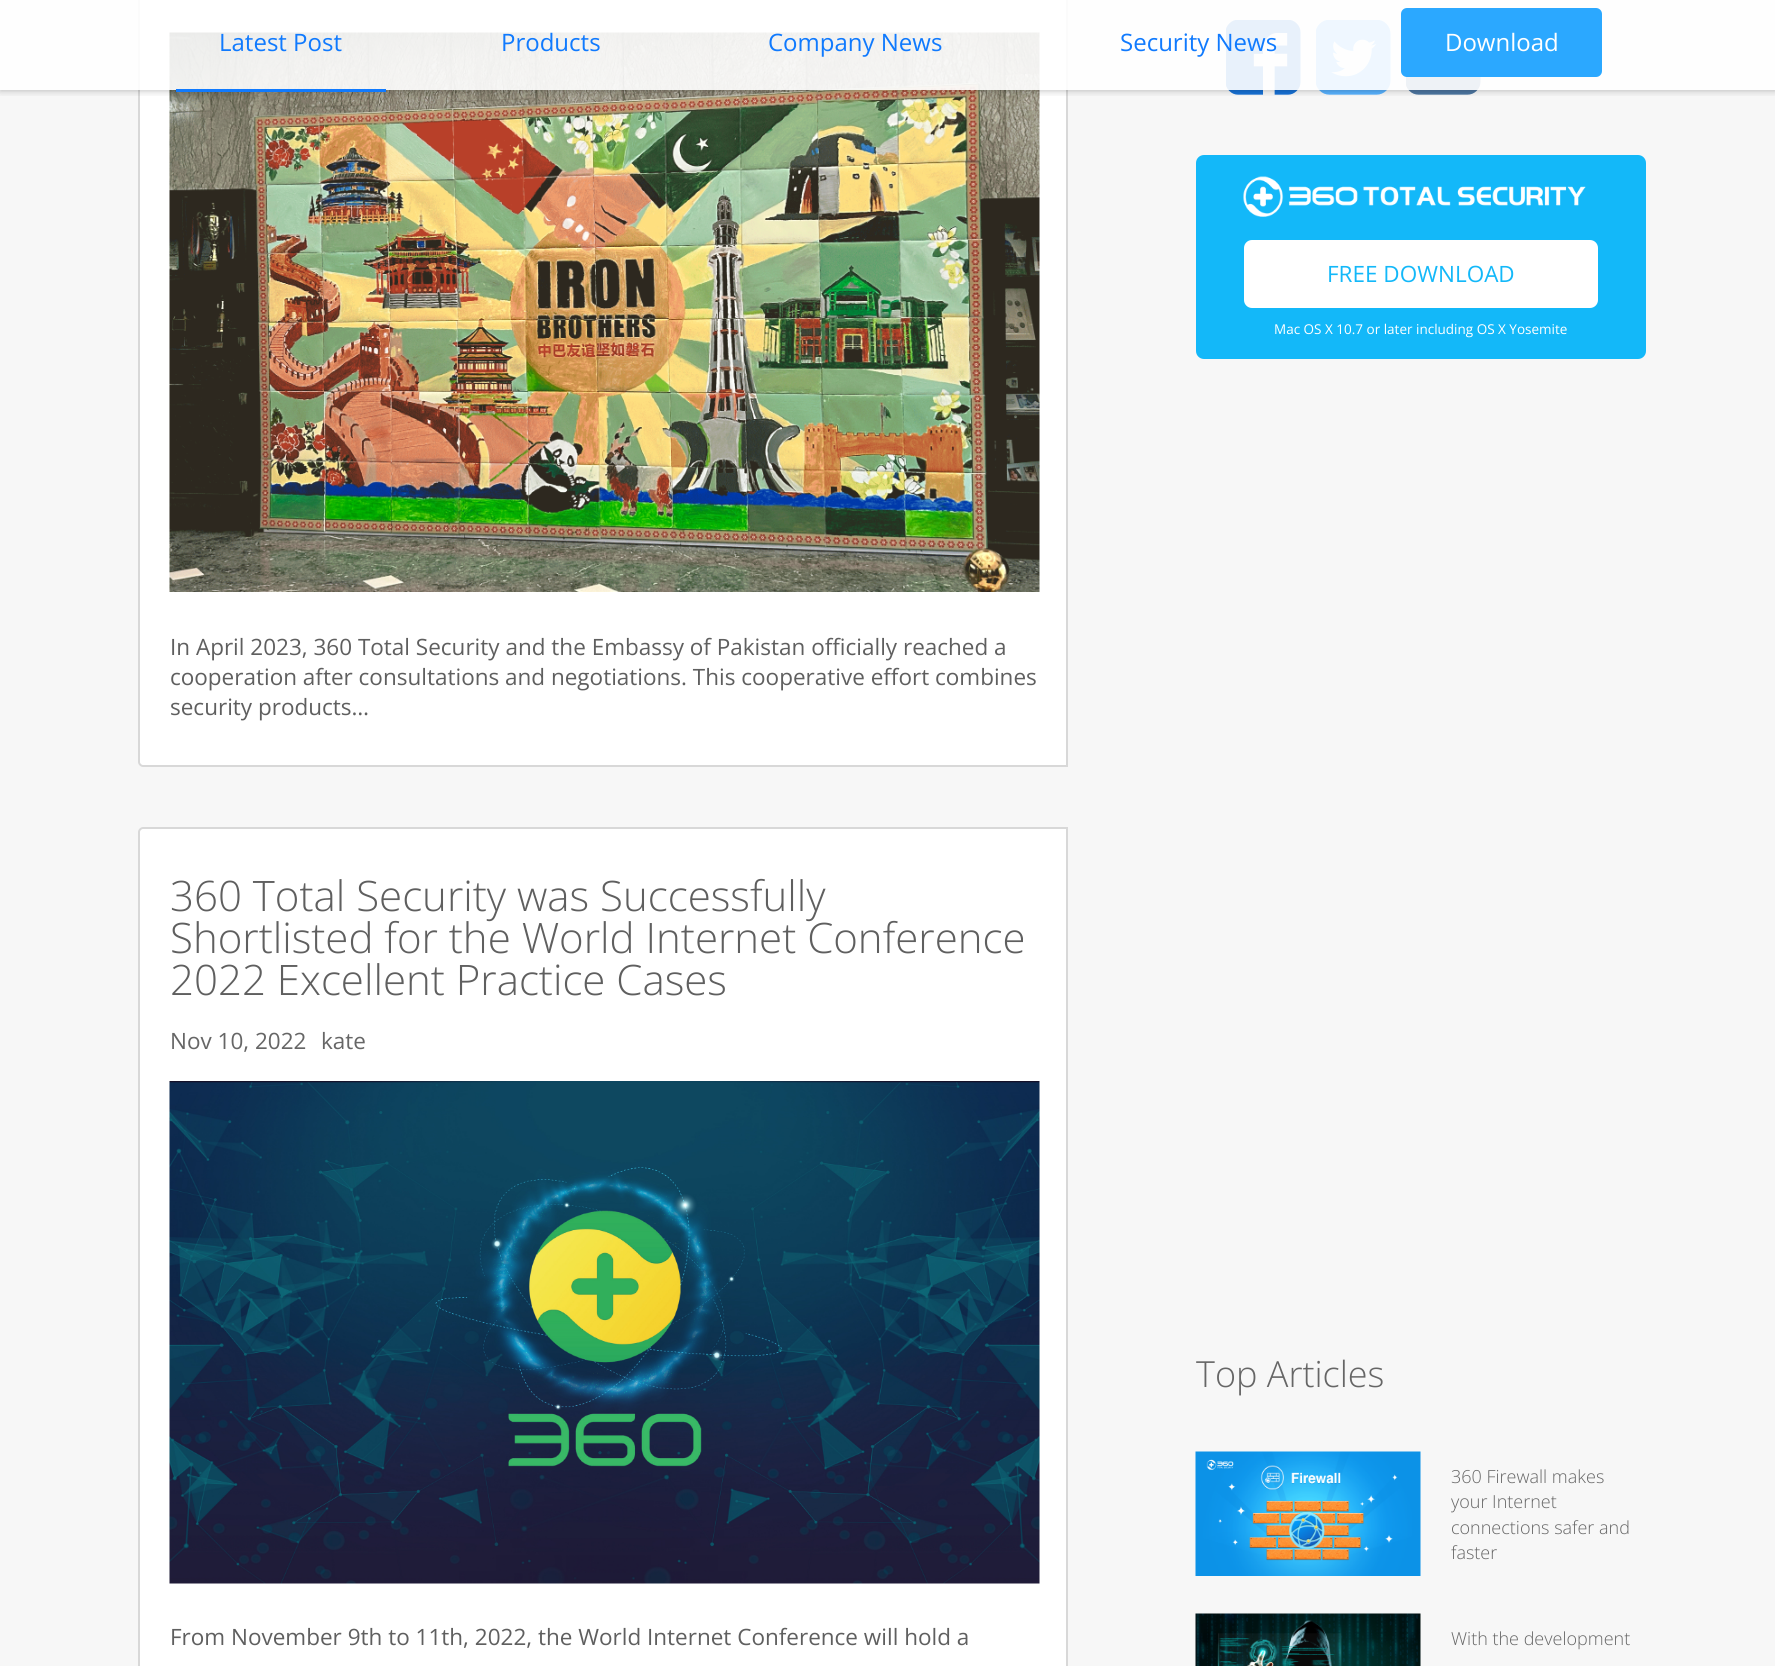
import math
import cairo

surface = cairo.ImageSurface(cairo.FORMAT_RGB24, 1775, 1666)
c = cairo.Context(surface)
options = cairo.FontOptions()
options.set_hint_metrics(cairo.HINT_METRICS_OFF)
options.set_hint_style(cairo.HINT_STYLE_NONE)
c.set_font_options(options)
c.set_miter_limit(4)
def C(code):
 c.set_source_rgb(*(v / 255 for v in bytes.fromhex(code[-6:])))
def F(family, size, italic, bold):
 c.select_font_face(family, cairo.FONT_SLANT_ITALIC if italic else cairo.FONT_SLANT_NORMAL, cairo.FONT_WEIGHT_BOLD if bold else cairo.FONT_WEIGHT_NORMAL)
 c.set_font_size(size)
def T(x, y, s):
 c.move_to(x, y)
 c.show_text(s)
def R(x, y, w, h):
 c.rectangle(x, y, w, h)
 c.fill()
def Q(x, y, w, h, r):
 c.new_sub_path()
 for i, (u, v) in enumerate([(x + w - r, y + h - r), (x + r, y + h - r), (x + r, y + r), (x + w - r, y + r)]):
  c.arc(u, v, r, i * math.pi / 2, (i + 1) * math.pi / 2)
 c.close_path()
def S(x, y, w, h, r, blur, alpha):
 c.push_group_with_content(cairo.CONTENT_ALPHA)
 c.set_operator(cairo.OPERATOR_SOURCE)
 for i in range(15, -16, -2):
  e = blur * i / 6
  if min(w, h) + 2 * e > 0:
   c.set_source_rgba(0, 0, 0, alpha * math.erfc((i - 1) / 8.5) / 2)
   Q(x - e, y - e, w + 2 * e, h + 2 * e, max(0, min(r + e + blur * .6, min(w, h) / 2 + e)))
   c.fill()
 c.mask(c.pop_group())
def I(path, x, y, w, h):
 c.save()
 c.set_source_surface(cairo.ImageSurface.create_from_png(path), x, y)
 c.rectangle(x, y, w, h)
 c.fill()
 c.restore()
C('f7f7f7')
c.paint()
C('ffffff')
c.new_path()
c.move_to(143,-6)
c.line_to(1067,-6)
c.line_to(1067,766)
c.line_to(143,766)
c.curve_to(141,766,139,764,139,762)
c.line_to(139,-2)
c.curve_to(139,-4,141,-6,143,-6)
c.close_path()
c.fill_preserve()
C('d8d8d8')
c.stroke()
I('1.png',169,32,871,560)
I('3.png',1226,20,75,75)
I('4.png',1316,20,75,75)
I('5.png',1406,76,75,19)
c.save()
c.rectangle(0,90,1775,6)
c.clip()
C('000000')
S(0,0,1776,90,0,4,.3)
c.restore()
c.set_source_rgba(1,1,1,0.9)
R(0,0,1775,90)
F('Open Sans',24,0,0)
C('107afe')
T(219,51,'Latest Post')
R(176,89,210,3)
T(501,51,'Products')
T(768,51,'Company News')
T(1120,51,'Security News')
C('2ba8ff')
Q(1401,8,201,69,6)
c.fill()
C('ffffff')
T(1445,51,'Download')
F('Open Sans',22.5,0,0)
C('5f5f5f')
T(170,655,'In April 2023, 360 Total Security and the Embassy of Pakistan officially reached a')
T(170,685,'cooperation after consultations and negotiations. This cooperative effort combines')
T(170,715,'security products…')
C('ffffff')
c.new_path()
c.move_to(143,828)
c.line_to(1067,828)
c.line_to(1067,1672)
c.line_to(143,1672)
c.curve_to(141,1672,139,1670,139,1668)
c.line_to(139,832)
c.curve_to(139,830,141,828,143,828)
c.close_path()
c.fill_preserve()
C('d8d8d8')
c.stroke()
F('Open Sans Light',42,0,0)
C('5f5f5f')
T(170,911,'360 Total Security was Successfully')
T(170,953,'Shortlisted for the World Internet Conference')
T(170,995,'2022 Excellent Practice Cases')
F('Open Sans',22.5,0,0)
C('666666')
T(170,1049,'Nov 10, 2022')
T(321,1049,'kate')
I('2.png',169,1081,871,503)
C('5f5f5f')
T(170,1645,'From November 9th to 11th, 2022, the World Internet Conference will hold a')
C('13b8f9')
Q(1196,155,450,204,8)
c.fill()
I('6.png',1243,176,343,41)
C('ffffff')
Q(1244,240,354,68,8)
c.fill()
C('13b8f9')
T(1327,282,'FREE DOWNLOAD')
F('Open Sans',13.5,0,0)
C('ffffff')
T(1274,334,'Mac OS X 10.7 or later including OS X Yosemite')
F('Open Sans Light',36,0,0)
C('666666')
T(1196,1387,'Top Articles')
I('7.png',1195,1451,226,125)
F('Open Sans Light',18,0,0)
T(1451,1483,'360 Firewall makes')
T(1451,1508,'your Internet')
T(1451,1534,'connections safer and')
T(1451,1559,'faster')
I('8.png',1195,1613,226,53)
T(1451,1645,'With the development')
surface.write_to_png('o.png')
